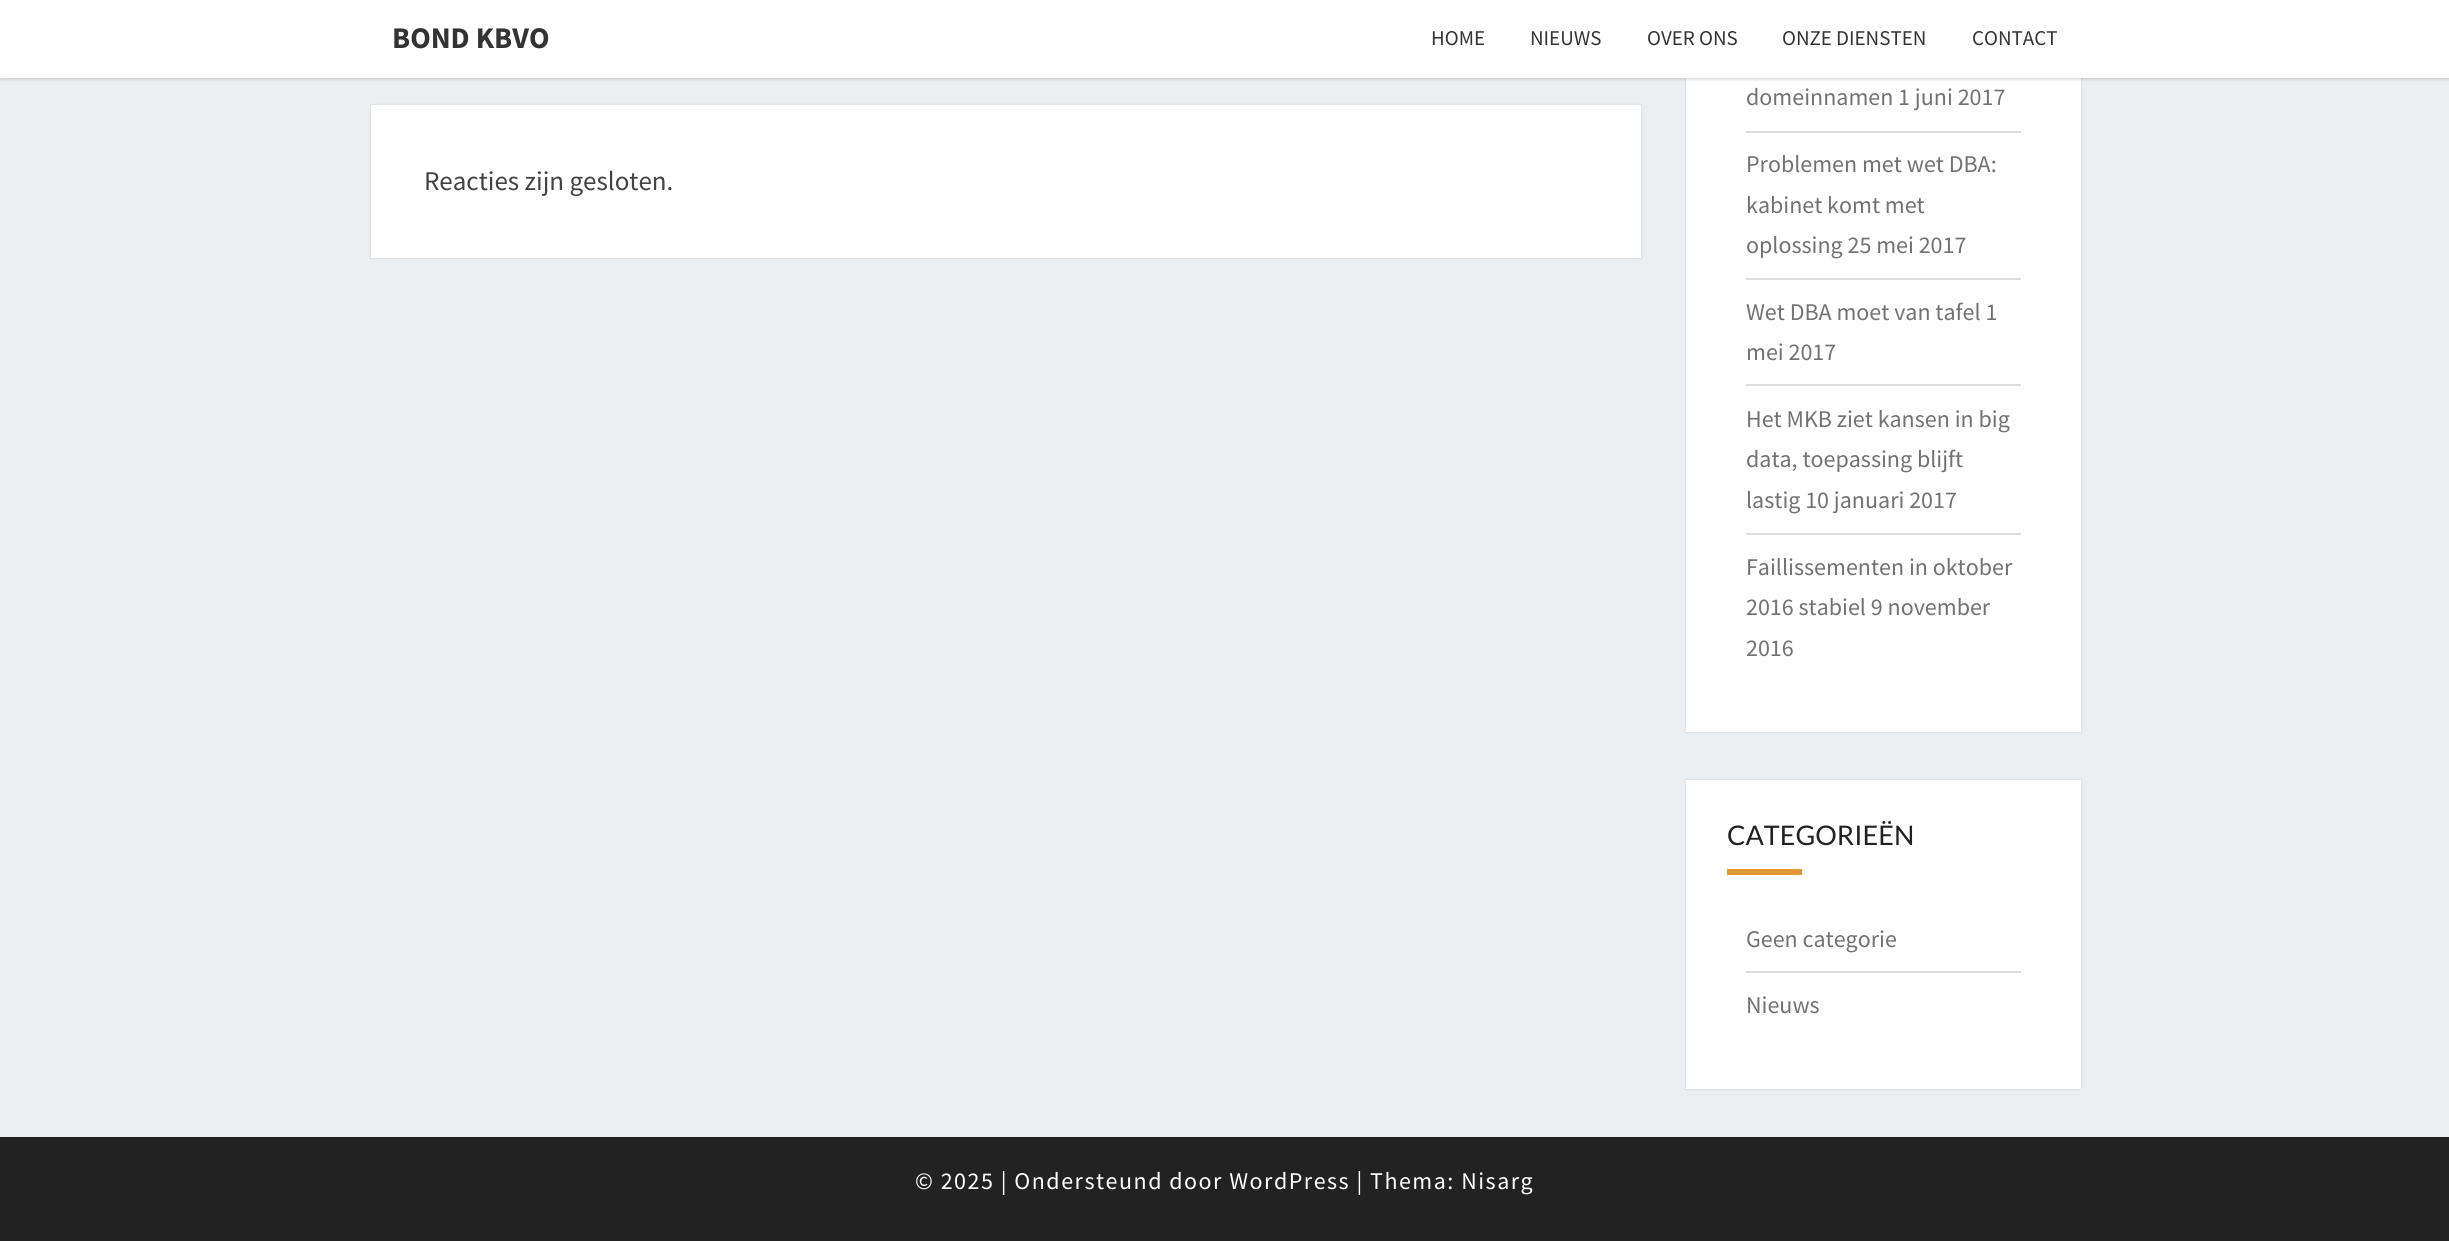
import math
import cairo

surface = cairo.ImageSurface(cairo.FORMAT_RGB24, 2449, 1241)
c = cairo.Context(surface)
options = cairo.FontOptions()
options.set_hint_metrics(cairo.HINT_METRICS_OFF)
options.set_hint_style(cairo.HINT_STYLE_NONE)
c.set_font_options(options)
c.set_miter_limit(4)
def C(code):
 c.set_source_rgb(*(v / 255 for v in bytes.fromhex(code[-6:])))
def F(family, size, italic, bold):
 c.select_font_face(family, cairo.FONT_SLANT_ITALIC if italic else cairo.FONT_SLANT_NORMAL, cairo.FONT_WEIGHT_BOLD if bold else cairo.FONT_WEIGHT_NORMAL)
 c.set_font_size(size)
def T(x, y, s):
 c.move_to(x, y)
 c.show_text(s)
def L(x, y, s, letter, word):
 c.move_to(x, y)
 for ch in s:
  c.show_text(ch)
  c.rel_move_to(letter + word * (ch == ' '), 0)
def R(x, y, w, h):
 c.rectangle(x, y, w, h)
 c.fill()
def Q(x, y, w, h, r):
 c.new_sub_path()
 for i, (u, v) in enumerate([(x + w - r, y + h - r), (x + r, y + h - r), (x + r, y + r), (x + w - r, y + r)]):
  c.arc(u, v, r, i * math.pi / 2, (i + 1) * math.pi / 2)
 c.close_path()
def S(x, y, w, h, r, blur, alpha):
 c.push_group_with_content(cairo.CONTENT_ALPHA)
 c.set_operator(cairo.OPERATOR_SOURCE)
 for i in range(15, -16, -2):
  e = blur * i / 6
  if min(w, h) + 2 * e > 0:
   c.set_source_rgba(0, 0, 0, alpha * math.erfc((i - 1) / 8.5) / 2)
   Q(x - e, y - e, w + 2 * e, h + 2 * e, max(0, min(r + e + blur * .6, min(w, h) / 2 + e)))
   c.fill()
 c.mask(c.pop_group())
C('eceff1')
c.paint()
C('000000')
S(1686,-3,395,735,0,1,.15)
C('ffffff')
R(1686,78,395,654)
C('646464')
S(0,2,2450,78,0,1,.2)
C('ffffff')
R(0,0,2449,78)
F('Source Sans Pro',30,0,1)
C('333333')
T(392,48,'BOND KBVO')
F('Source Sans Pro',21,0,0)
T(1431,45,'HOME')
T(1530,45,'NIEUWS')
T(1647,45,'OVER ONS')
T(1782,45,'ONZE DIENSTEN')
T(1972,45,'CONTACT')
C('000000')
S(371,105,1270,153,0,1,.15)
C('ffffff')
R(371,105,1270,153)
F('Source Sans Pro',27,0,0)
C('424242')
T(424,190,'Reacties zijn gesloten.')
C('dddddd')
R(1746,131,275,2)
F('Source Sans Pro',24,0,0)
C('727272')
T(1746,105,'domeinnamen 1 juni 2017')
C('dddddd')
R(1746,278,275,2)
C('727272')
T(1746,172,'Problemen met wet DBA:')
T(1746,213,'kabinet komt met')
T(1746,253,'oplossing 25 mei 2017')
C('dddddd')
R(1746,384,275,2)
C('727272')
T(1746,320,'Wet DBA moet van tafel 1')
T(1746,360,'mei 2017')
C('dddddd')
R(1746,533,275,2)
C('727272')
T(1746,427,'Het MKB ziet kansen in big')
T(1746,467,'data, toepassing blijft')
T(1746,508,'lastig 10 januari 2017')
T(1746,575,'Faillissementen in oktober')
T(1746,615,'2016 stabiel 9 november')
T(1746,656,'2016')
C('000000')
S(1686,780,395,309,0,1,.15)
C('ffffff')
R(1686,780,395,309)
F('Lato',27,0,0)
C('212121')
T(1727,845,'CATEGORIEËN')
C('dd9933')
R(1727,869,75,6)
C('dddddd')
R(1746,971,275,2)
F('Source Sans Pro',24,0,0)
C('727272')
T(1746,947,'Geen categorie')
T(1746,1013,'Nieuws')
C('222222')
R(0,1137,2449,104)
C('ffffff')
L(915,1189,'© 2025 | Ondersteund door WordPress | Thema: Nisarg',1.5,0)
surface.write_to_png('o.png')
